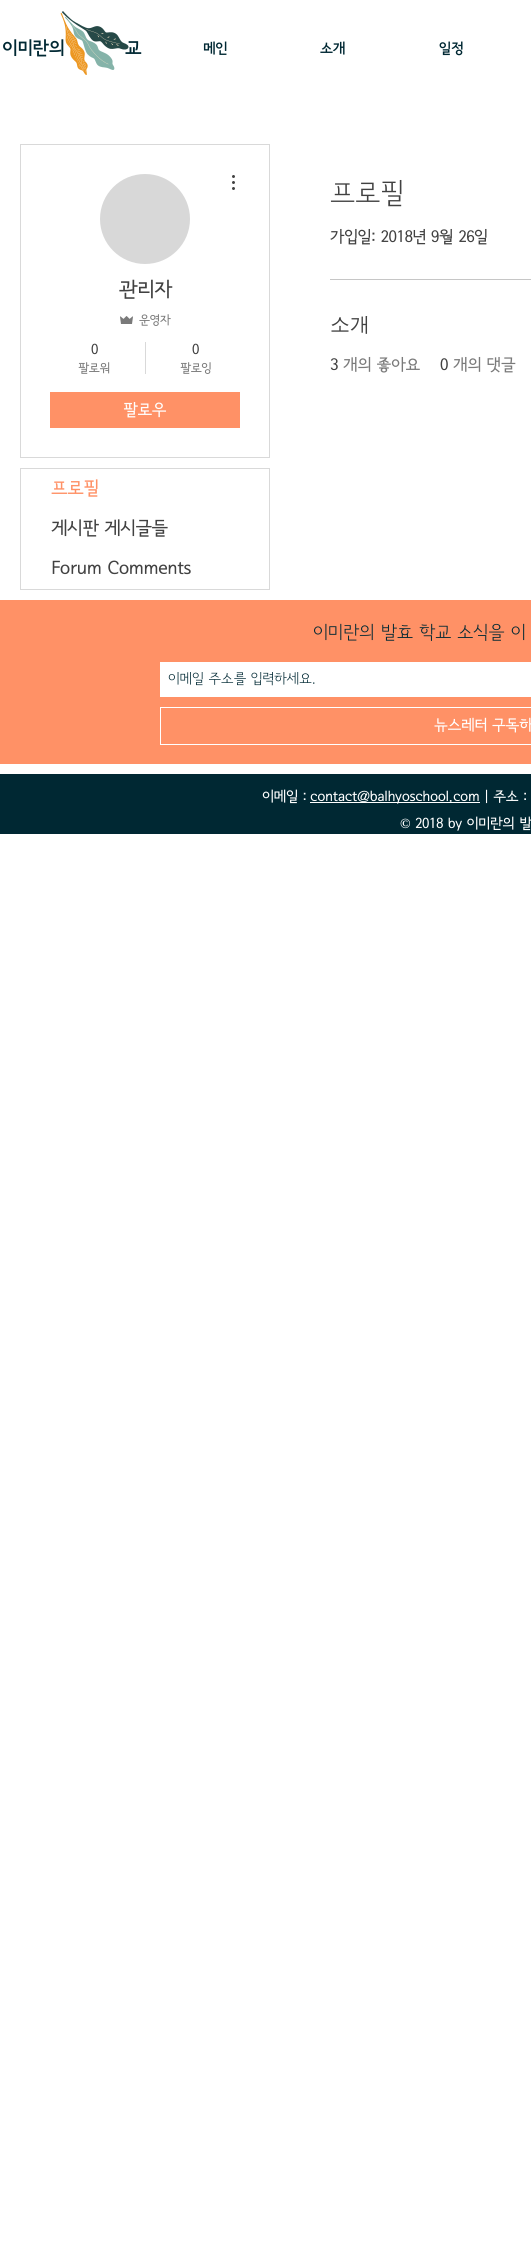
import math
import cairo

surface = cairo.ImageSurface(cairo.FORMAT_RGB24, 531, 2241)
c = cairo.Context(surface)
options = cairo.FontOptions()
options.set_hint_metrics(cairo.HINT_METRICS_OFF)
options.set_hint_style(cairo.HINT_STYLE_NONE)
c.set_font_options(options)
c.set_miter_limit(4)
def C(code):
 c.set_source_rgb(*(v / 255 for v in bytes.fromhex(code[-6:])))
def F(family, size, italic, bold):
 c.select_font_face(family, cairo.FONT_SLANT_ITALIC if italic else cairo.FONT_SLANT_NORMAL, cairo.FONT_WEIGHT_BOLD if bold else cairo.FONT_WEIGHT_NORMAL)
 c.set_font_size(size)
def T(x, y, s):
 c.move_to(x, y)
 c.show_text(s)
def R(x, y, w, h):
 c.rectangle(x, y, w, h)
 c.fill()
def I(path, x, y, w, h):
 c.save()
 c.set_source_surface(cairo.ImageSurface.create_from_png(path), x, y)
 c.rectangle(x, y, w, h)
 c.fill()
 c.restore()
C('ffffff')
c.paint()
F('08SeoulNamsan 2',18,0,1)
C('002833')
T(2,54,'이미란의')
T(125,54,'교')
I('1.png',60,11,69,64)
F('08SeoulNamsan 2',14,0,1)
T(203,53,'메인')
T(320,53,'소개')
T(439,53,'일정')
c.rectangle(20.5,144.5,249,313)
C('d9d9d9')
c.set_line_width(1)
c.stroke()
C('d8d8d8')
c.arc(145,219,45,0,2 * math.pi)
c.fill()
I('2.png',232,175,3,15)
F('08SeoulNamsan',20,0,1)
C('414141')
T(119,296,'관리자')
I('3.png',120,316,13,8)
F('08SeoulNamsan',12,0,1)
C('7a7a7a')
T(139,324,'운영자')
F('08SeoulNamsan',14,0,1)
C('414141')
T(91,354,'0')
F('08SeoulNamsan',12,0,1)
C('7a7a7a')
T(78,372,'팔로워')
C('d9d9d9')
R(145,342,1,32)
F('08SeoulNamsan',14,0,1)
C('414141')
T(192,354,'0')
F('08SeoulNamsan',12,0,1)
C('7a7a7a')
T(180,372,'팔로잉')
C('ff9166')
R(50,392,190,36)
F('08SeoulNamsan',16,0,1)
C('ffffff')
T(123,415,'팔로우')
c.rectangle(20.5,468.5,249,121)
C('d9d9d9')
c.stroke()
F('08SeoulNamsan',18,0,1)
C('ff9166')
T(51,494,'프로필')
C('414141')
T(51,534,'게시판 게시글들')
T(51,574,'Forum Comments')
F('08SeoulNamsan',28,0,0)
T(330,202,'프로필')
F('08SeoulNamsan',16,0,1)
T(330,242,'가입일: 2018년 9월 26일')
C('c6c6c6')
R(330,279,201,1)
F('WenQuanYi Zen Hei Medium',20,0,0)
C('414141')
T(330,331,'소개')
F('08SeoulNamsan',16,0,1)
T(330,370,'3')
C('7a7a7a')
T(343,370,'개의 좋아요')
C('414141')
T(440,370,'0')
C('7a7a7a')
T(453,370,'개의 댓글')
C('ff9166')
R(0,600,531,164)
F('08SeoulNamsan',18,0,0)
C('002833')
T(313,638,'이미란의 발효 학교 소식을 이')
C('ffffff')
R(160,662,371,35)
F('08SeoulNamsan',14,0,0)
C('002833')
T(168,683,'이메일 주소를 입력하세요.')
c.rectangle(160.5,707.5,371,37)
C('ffffff')
c.stroke()
F('08SeoulNamsan',15,0,1)
T(434,730,'뉴스레터 구독하')
C('002833')
R(0,774,531,60)
F('08SeoulNamsan',14,0,1)
C('ffffff')
T(262,801,'이메일 :')
R(310,802,170,1)
T(310,801,'contact@balhyoschool.com | 주소 :')
F('Liberation Serif',14,0,1)
T(400,828,'©')
F('08SeoulNamsan',14,0,1)
T(415,828,'2018 by 이미란의 발')
surface.write_to_png('o.png')
